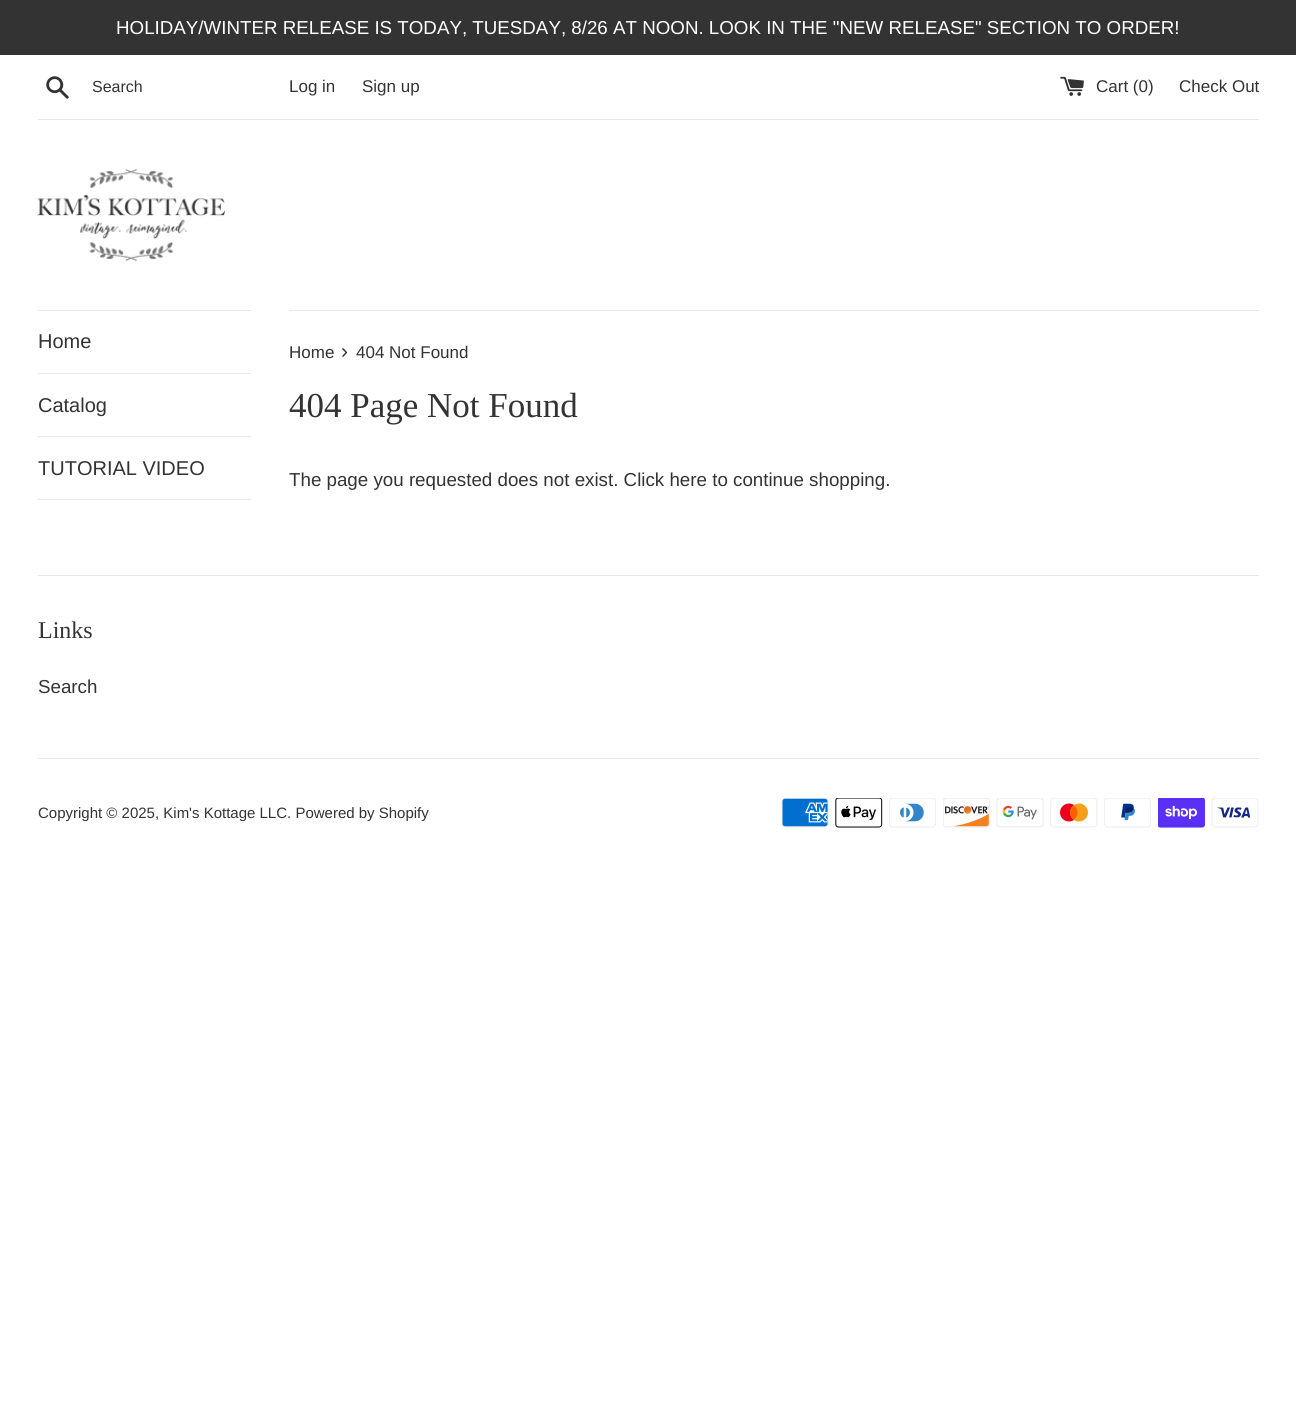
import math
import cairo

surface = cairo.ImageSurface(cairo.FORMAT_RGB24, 1296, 1411)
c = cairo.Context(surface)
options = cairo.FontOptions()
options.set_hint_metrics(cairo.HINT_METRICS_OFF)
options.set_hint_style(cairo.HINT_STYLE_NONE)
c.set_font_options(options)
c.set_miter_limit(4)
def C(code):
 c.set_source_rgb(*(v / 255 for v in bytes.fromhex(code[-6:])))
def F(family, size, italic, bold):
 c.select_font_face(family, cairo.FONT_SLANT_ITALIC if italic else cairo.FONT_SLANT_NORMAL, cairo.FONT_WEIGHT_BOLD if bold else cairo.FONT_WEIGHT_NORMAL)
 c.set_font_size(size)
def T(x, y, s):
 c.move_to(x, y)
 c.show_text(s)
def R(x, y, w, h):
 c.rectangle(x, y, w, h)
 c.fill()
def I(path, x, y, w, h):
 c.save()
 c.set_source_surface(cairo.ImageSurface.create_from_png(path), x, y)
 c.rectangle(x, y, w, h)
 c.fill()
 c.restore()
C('ffffff')
c.paint()
C('333333')
R(0,0,1296,55)
F('Liberation Sans',18.75,0,0)
C('ffffff')
T(116,34,'HOLIDAY/WINTER RELEASE IS TODAY, TUESDAY, 8/26 AT NOON. LOOK IN THE "NEW RELEASE" SECTION TO ORDER!')
I('1.png',46,76,23,23)
F('Liberation Sans',16,0,0)
C('333333')
T(92,92,'Search')
F('Liberation Sans',17,0,0)
T(289,92,'Log in')
T(362,92,'Sign up')
I('2.png',1060,76,24,20)
T(1096,92,'Cart (0)')
T(1179,92,'Check Out')
C('e8e8e8')
R(38,119,1221,1)
I('3.png',37,169,188,93)
R(38,310,213,1)
R(38,373,213,1)
F('Liberation Sans',20,0,0)
C('333333')
T(38,348,'Home')
C('e8e8e8')
R(38,436,213,1)
C('333333')
T(38,412,'Catalog')
C('e8e8e8')
R(38,499,213,1)
C('333333')
T(38,475,'TUTORIAL VIDEO')
C('e8e8e8')
R(289,310,970,1)
F('Liberation Sans',17,0,0)
C('333333')
T(289,358,'Home')
F('Liberation Sans',21,0,0)
T(341,358,'›')
F('Liberation Sans',17,0,0)
T(356,358,'404 Not Found')
F('Liberation Serif',35,0,0)
T(289,417,'404 Page Not Found')
F('Liberation Sans',18.75,0,0)
T(289,486,'The page you requested does not exist. Click here to continue shopping.')
C('e8e8e8')
R(38,575,1221,1)
F('Liberation Serif',24,0,0)
C('333333')
T(38,638,'Links')
F('Liberation Sans',18.75,0,0)
T(38,693,'Search')
C('e8e8e8')
R(38,758,1221,1)
F('Liberation Sans',15,0,0)
C('333333')
T(38,818,'Copyright © 2025, Kim\'s Kottage LLC. Powered by Shopify')
I('4.png',781,798,48,30)
I('5.png',835,798,48,30)
I('6.png',889,798,47,30)
I('7.png',943,798,47,30)
I('8.png',996,798,48,30)
I('9.png',1050,798,48,30)
I('10.png',1104,798,47,30)
I('11.png',1158,798,47,30)
I('12.png',1211,798,48,30)
surface.write_to_png('o.png')
